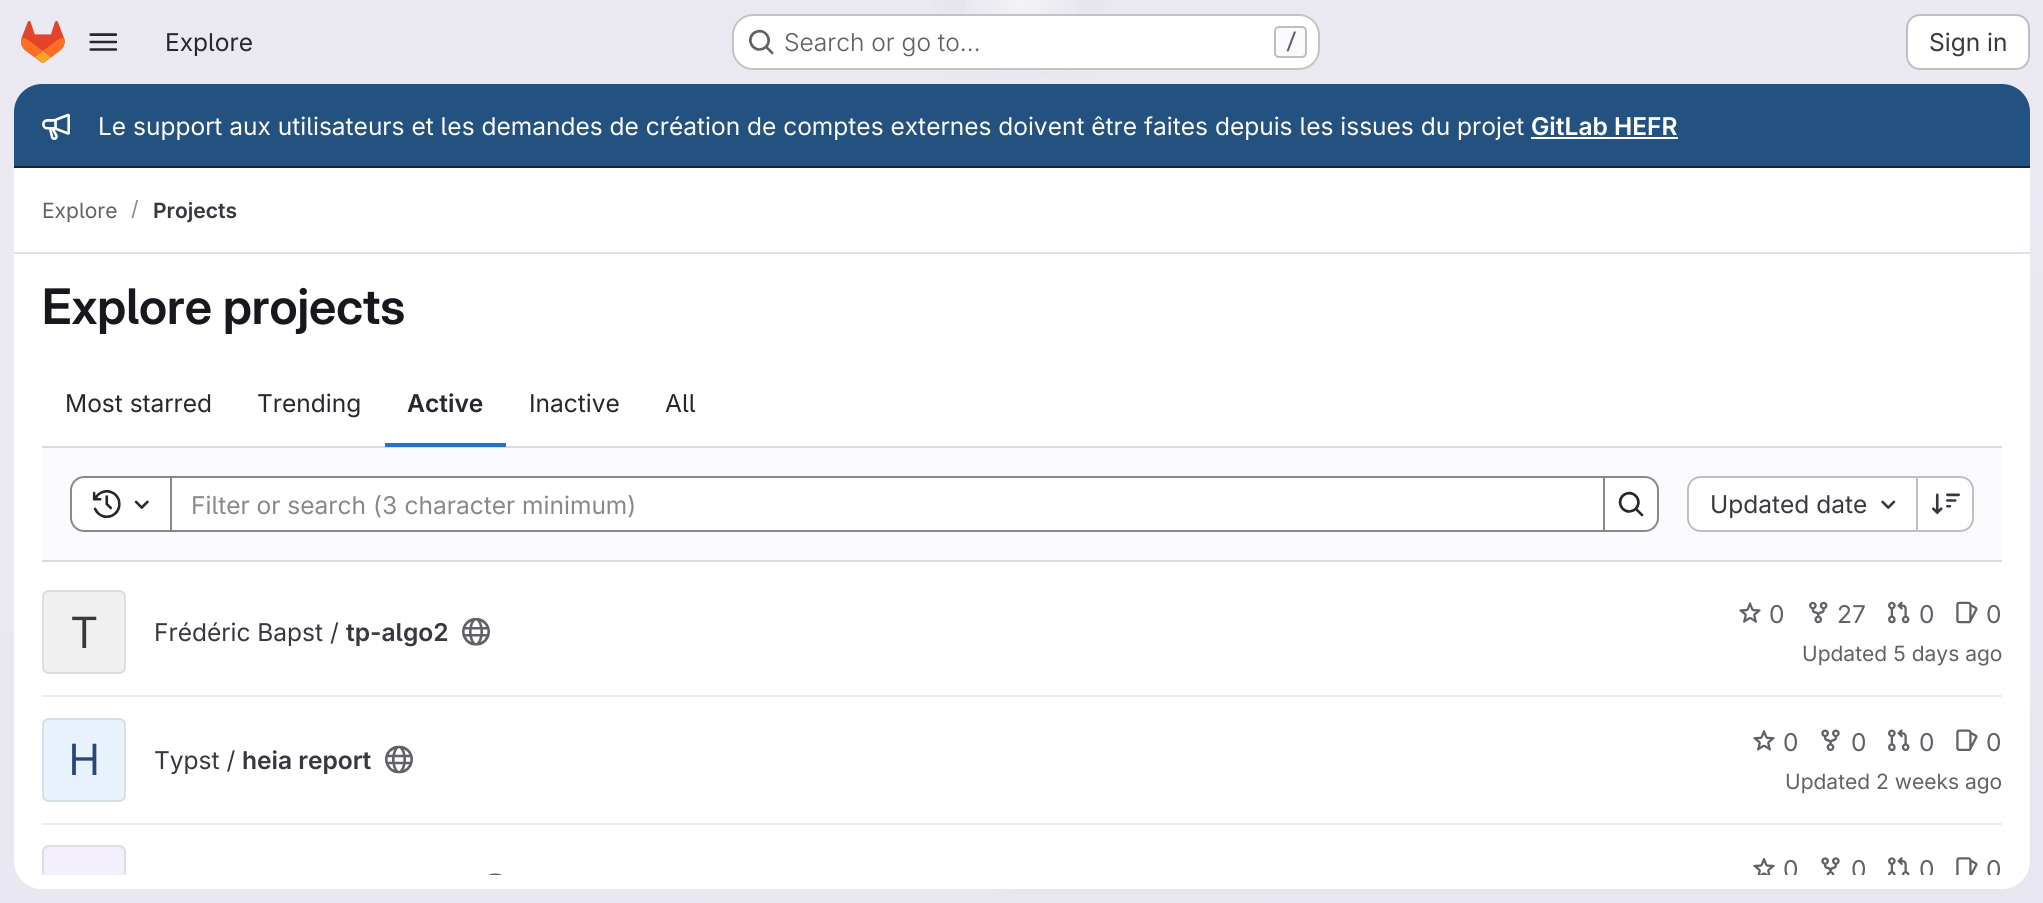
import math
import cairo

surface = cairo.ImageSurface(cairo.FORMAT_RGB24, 2043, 903)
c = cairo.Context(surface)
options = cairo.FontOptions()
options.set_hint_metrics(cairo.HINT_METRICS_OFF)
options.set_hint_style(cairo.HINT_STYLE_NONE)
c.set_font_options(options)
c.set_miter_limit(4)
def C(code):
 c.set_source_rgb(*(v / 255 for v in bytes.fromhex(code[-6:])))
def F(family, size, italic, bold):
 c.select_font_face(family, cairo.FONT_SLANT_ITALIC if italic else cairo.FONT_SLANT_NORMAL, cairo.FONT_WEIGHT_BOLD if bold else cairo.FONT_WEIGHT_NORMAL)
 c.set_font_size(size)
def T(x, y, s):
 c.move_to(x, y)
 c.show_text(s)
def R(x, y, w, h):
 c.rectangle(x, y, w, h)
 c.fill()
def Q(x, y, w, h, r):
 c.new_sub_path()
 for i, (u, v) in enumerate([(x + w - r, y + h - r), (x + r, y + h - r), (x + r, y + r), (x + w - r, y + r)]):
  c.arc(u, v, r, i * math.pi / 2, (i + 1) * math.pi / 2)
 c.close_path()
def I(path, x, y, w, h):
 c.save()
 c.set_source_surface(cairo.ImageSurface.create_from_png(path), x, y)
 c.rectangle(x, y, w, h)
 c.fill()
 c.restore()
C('ffffff')
c.paint()
gradient = cairo.LinearGradient(1130,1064,914,-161)
gradient.add_color_stop_rgba(0,0.91,0.902,0.941,1)
gradient.add_color_stop_rgba(.7,0.918,0.914,0.949,1)
c.set_source(gradient)
R(0,0,2043,903)
gradient = cairo.RadialGradient(0,0,0,0,0,1)
gradient.set_matrix(cairo.Matrix(1 / 1022, 0, 0, 1 / 903, -1 * 1022 / 1022, -1 * 0 / 903))
gradient.add_color_stop_rgba(0,0.894,0.886,0.929,1)
gradient.add_color_stop_rgba(.12,0.894,0.886,0.929,0)
c.set_source(gradient)
R(934,0,176,78)
gradient = cairo.RadialGradient(0,0,0,0,0,1)
gradient.set_matrix(cairo.Matrix(1 / 1022, 0, 0, 1 / 903, -1 * 1022 / 1022, -1 * 0 / 903))
gradient.add_color_stop_rgba(0,0.894,0.886,0.925,1)
gradient.add_color_stop_rgba(.09,0.894,0.886,0.925,0)
c.set_source(gradient)
R(979,4,86,34)
gradient = cairo.RadialGradient(1022,0,0,1022,0,1364)
gradient.add_color_stop_rgba(0,1,1,1,.6)
gradient.add_color_stop_rgba(.05,1,1,1,0)
c.set_source(gradient)
R(965,0,114,14)
I('1.png',21,21,44,42)
I('2.png',89,33,29,18)
F('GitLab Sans',24.5,0,0)
C('28272d')
T(165,51,'Explore')
C('ffffff')
Q(732,14,588,56,21)
c.fill()
Q(733,15,586,54,20)
c.set_source_rgba(0.02,0.02,0.024,0.24)
c.stroke()
I('3.png',749,29,25,26)
F('GitLab Sans Light',24.5,0,0)
C('626168')
T(784,51,'Search or go to…')
C('fbfafd')
Q(1275,27,31,30,4)
c.fill_preserve()
C('bfbfc3')
c.stroke()
F('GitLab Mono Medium',21,0,0)
C('626168')
T(1285,49,'/')
C('ffffff')
Q(1907,15,122,54,13)
c.fill_preserve()
C('bfbfc3')
c.stroke()
F('GitLab Sans',24.5,0,0)
C('3a383f')
T(1929,51,'Sign in')
C('ffffff')
Q(14,84,2016,805,28)
c.fill()
C('235180')
c.new_path()
c.move_to(42,84)
c.line_to(2002,84)
c.curve_to(2017.5,84,2030,96.5,2030,112)
c.line_to(2030,168)
c.line_to(14,168)
c.line_to(14,112)
c.curve_to(14,96.5,26.5,84,42,84)
c.close_path()
c.fill()
C('0b2640')
R(14,166,2016,2)
I('4.png',42,113,28,27)
C('ffffff')
T(98,135,'Le support aux utilisateurs et les demandes de création de comptes externes doivent être faites depuis les issues du projet')
F('GitLab Sans SemiBold',24.5,0,0)
T(1531,135,'GitLab HEFR')
R(1531,137,147,2)
C('e1dfec')
R(14,252,2016,2)
F('GitLab Sans',21,0,0)
C('626168')
T(42,218,'Explore')
C('89888d')
T(131,216,'/')
F('GitLab Sans SemiBold',21,0,0)
C('3a383f')
T(153,218,'Projects')
F('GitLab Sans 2 SemiBold',49,0,0)
C('18171d')
T(42,324,'Explore projects')
F('GitLab Sans',24.5,0,0)
C('28272d')
T(65,412,'Most starred')
T(257,412,'Trending')
F('GitLab Sans SemiBold',24.5,0,0)
T(407,412,'Active')
C('dcdcde')
R(42,446,1960,2)
C('1f75cb')
R(385,443,121,4)
F('GitLab Sans',24.5,0,0)
C('28272d')
T(529,412,'Inactive')
T(665,412,'All')
C('fbfafd')
R(42,448,1960,112)
C('dcdcde')
R(42,560,1960,2)
C('ffffff')
c.rectangle(171,477,1433,54)
c.fill_preserve()
C('89888d')
c.stroke()
C('ffffff')
c.new_path()
c.move_to(84,477)
c.line_to(171,477)
c.line_to(171,531)
c.line_to(84,531)
c.curve_to(77,531,71,525,71,518)
c.line_to(71,490)
c.curve_to(71,483,77,477,84,477)
c.close_path()
c.fill_preserve()
C('89888d')
c.stroke()
I('5.png',92,490,29,28)
I('6.png',134,500,15,9)
T(191,514,'Filter or search (3 character minimum)')
C('ffffff')
c.new_path()
c.move_to(1604,477)
c.line_to(1645,477)
c.curve_to(1652,477,1658,483,1658,490)
c.line_to(1658,518)
c.curve_to(1658,525,1652,531,1645,531)
c.line_to(1604,531)
c.close_path()
c.fill_preserve()
C('89888d')
c.stroke()
I('7.png',1618,491,26,26)
C('ffffff')
c.new_path()
c.move_to(1701,478)
c.line_to(1916,478)
c.line_to(1916,530)
c.line_to(1701,530)
c.curve_to(1694.5,530,1689,524.5,1689,518)
c.line_to(1689,490)
c.curve_to(1689,483.5,1694.5,478,1701,478)
c.close_path()
c.fill()
C('bfbfc3')
c.set_fill_rule(cairo.FILL_RULE_EVEN_ODD)
c.new_path()
c.move_to(1701,476)
c.line_to(1916,476)
c.line_to(1916,532)
c.line_to(1701,532)
c.curve_to(1693,532,1687,526,1687,518)
c.line_to(1687,490)
c.curve_to(1687,482,1693,476,1701,476)
c.close_path()
c.move_to(1701,478)
c.line_to(1916,478)
c.line_to(1916,530)
c.line_to(1701,530)
c.curve_to(1694,530,1689,525,1689,518)
c.line_to(1689,490)
c.curve_to(1689,483,1694,478,1701,478)
c.close_path()
c.fill()
C('3a383f')
T(1710,513,'Updated date')
I('8.png',1881,500,15,9)
C('ffffff')
c.new_path()
c.move_to(1918,478)
c.line_to(1960,478)
c.curve_to(1966.5,478,1972,483.5,1972,490)
c.line_to(1972,518)
c.curve_to(1972,524.5,1966.5,530,1960,530)
c.line_to(1918,530)
c.close_path()
c.fill()
C('bfbfc3')
c.new_path()
c.move_to(1918,476)
c.line_to(1960,476)
c.curve_to(1968,476,1974,482,1974,490)
c.line_to(1974,518)
c.curve_to(1974,526,1968,532,1960,532)
c.line_to(1918,532)
c.close_path()
c.move_to(1918,478)
c.line_to(1960,478)
c.curve_to(1967,478,1972,483,1972,490)
c.line_to(1972,518)
c.curve_to(1972,525,1967,530,1960,530)
c.line_to(1918,530)
c.close_path()
c.fill()
R(1916,476,2,56)
I('9.png',1932,493,28,22)
C('ececef')
R(42,695,1960,2)
C('f0f0f1')
Q(42,590,84,84,7)
c.fill()
Q(43,591,82,82,6)
c.set_source_rgba(0.02,0.02,0.024,0.08)
c.stroke()
F('GitLab Sans 2',43,0,0)
C('3a383f')
T(71,648,'T')
F('GitLab Sans',24.5,0,0)
T(154,641,'Frédéric Bapst /')
F('GitLab Sans SemiBold',24.5,0,0)
T(346,641,'tp-algo2')
I('10.png',462,617,28,29)
I('11.png',1739,602,22,21)
F('GitLab Sans',24.5,0,0)
C('626168')
T(1769,623,'0')
I('12.png',1809,601,19,23)
T(1837,623,'27')
I('13.png',1888,601,22,23)
T(1919,623,'0')
I('14.png',1956,601,22,23)
T(1986,623,'0')
F('GitLab Sans',21,0,0)
T(1802,661,'Updated 5 days ago')
C('ececef')
R(42,823,1960,2)
C('e7f2fc')
Q(42,718,84,84,7)
c.fill()
Q(43,719,82,82,6)
c.set_source_rgba(0.02,0.02,0.024,0.08)
c.stroke()
F('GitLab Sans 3',43,0,0)
C('284779')
T(69,775,'H')
F('GitLab Sans',24.5,0,0)
C('3a383f')
T(154,769,'Typst /')
F('GitLab Sans SemiBold',24.5,0,0)
T(242,769,'heia report')
I('15.png',385,745,28,29)
I('16.png',1753,730,22,21)
F('GitLab Sans',24.5,0,0)
C('626168')
T(1783,751,'0')
I('17.png',1821,729,19,22)
T(1851,751,'0')
I('18.png',1888,729,22,22)
T(1919,751,'0')
I('19.png',1956,729,22,22)
T(1986,751,'0')
F('GitLab Sans',21,0,0)
T(1785,789,'Updated 2 weeks ago')
C('f3effc')
c.new_path()
c.move_to(49,845)
c.line_to(119,845)
c.curve_to(123,845,126,848,126,852)
c.line_to(126,875)
c.line_to(42,875)
c.line_to(42,852)
c.curve_to(42,848,45,845,49,845)
c.close_path()
c.fill()
c.save()
c.set_fill_rule(cairo.FILL_RULE_WINDING)
c.rectangle(14,254,2016,621)
c.clip()
c.set_source_rgba(0.02,0.02,0.024,0.08)
c.new_path()
c.move_to(49,845)
c.curve_to(45,845,42,848,42,852)
c.line_to(42,889)
c.line_to(44,889)
c.line_to(44,852)
c.curve_to(44,849,46,847,49,847)
c.line_to(119,847)
c.curve_to(122,847,124,849,124,852)
c.line_to(124,889)
c.line_to(126,889)
c.line_to(126,852)
c.curve_to(126,848,123,845,119,845)
c.close_path()
c.fill()
c.restore()
I('20.png',488,873,14,2)
I('21.png',1753,857,22,18)
c.save()
c.set_fill_rule(cairo.FILL_RULE_WINDING)
c.rectangle(14,254,2016,621)
c.clip()
F('GitLab Sans',24.5,0,0)
C('626168')
T(1783,878,'0')
c.restore()
I('22.png',1821,857,19,18)
c.save()
c.set_fill_rule(cairo.FILL_RULE_WINDING)
c.rectangle(14,254,2016,621)
c.clip()
F('GitLab Sans',24.5,0,0)
C('626168')
T(1851,878,'0')
c.restore()
I('23.png',1888,857,22,18)
c.save()
c.set_fill_rule(cairo.FILL_RULE_WINDING)
c.rectangle(14,254,2016,621)
c.clip()
F('GitLab Sans',24.5,0,0)
C('626168')
T(1919,878,'0')
c.restore()
I('24.png',1956,857,22,18)
c.save()
c.set_fill_rule(cairo.FILL_RULE_WINDING)
c.rectangle(14,254,2016,621)
c.clip()
F('GitLab Sans',24.5,0,0)
C('626168')
T(1986,878,'0')
c.restore()
surface.write_to_png('o.png')
